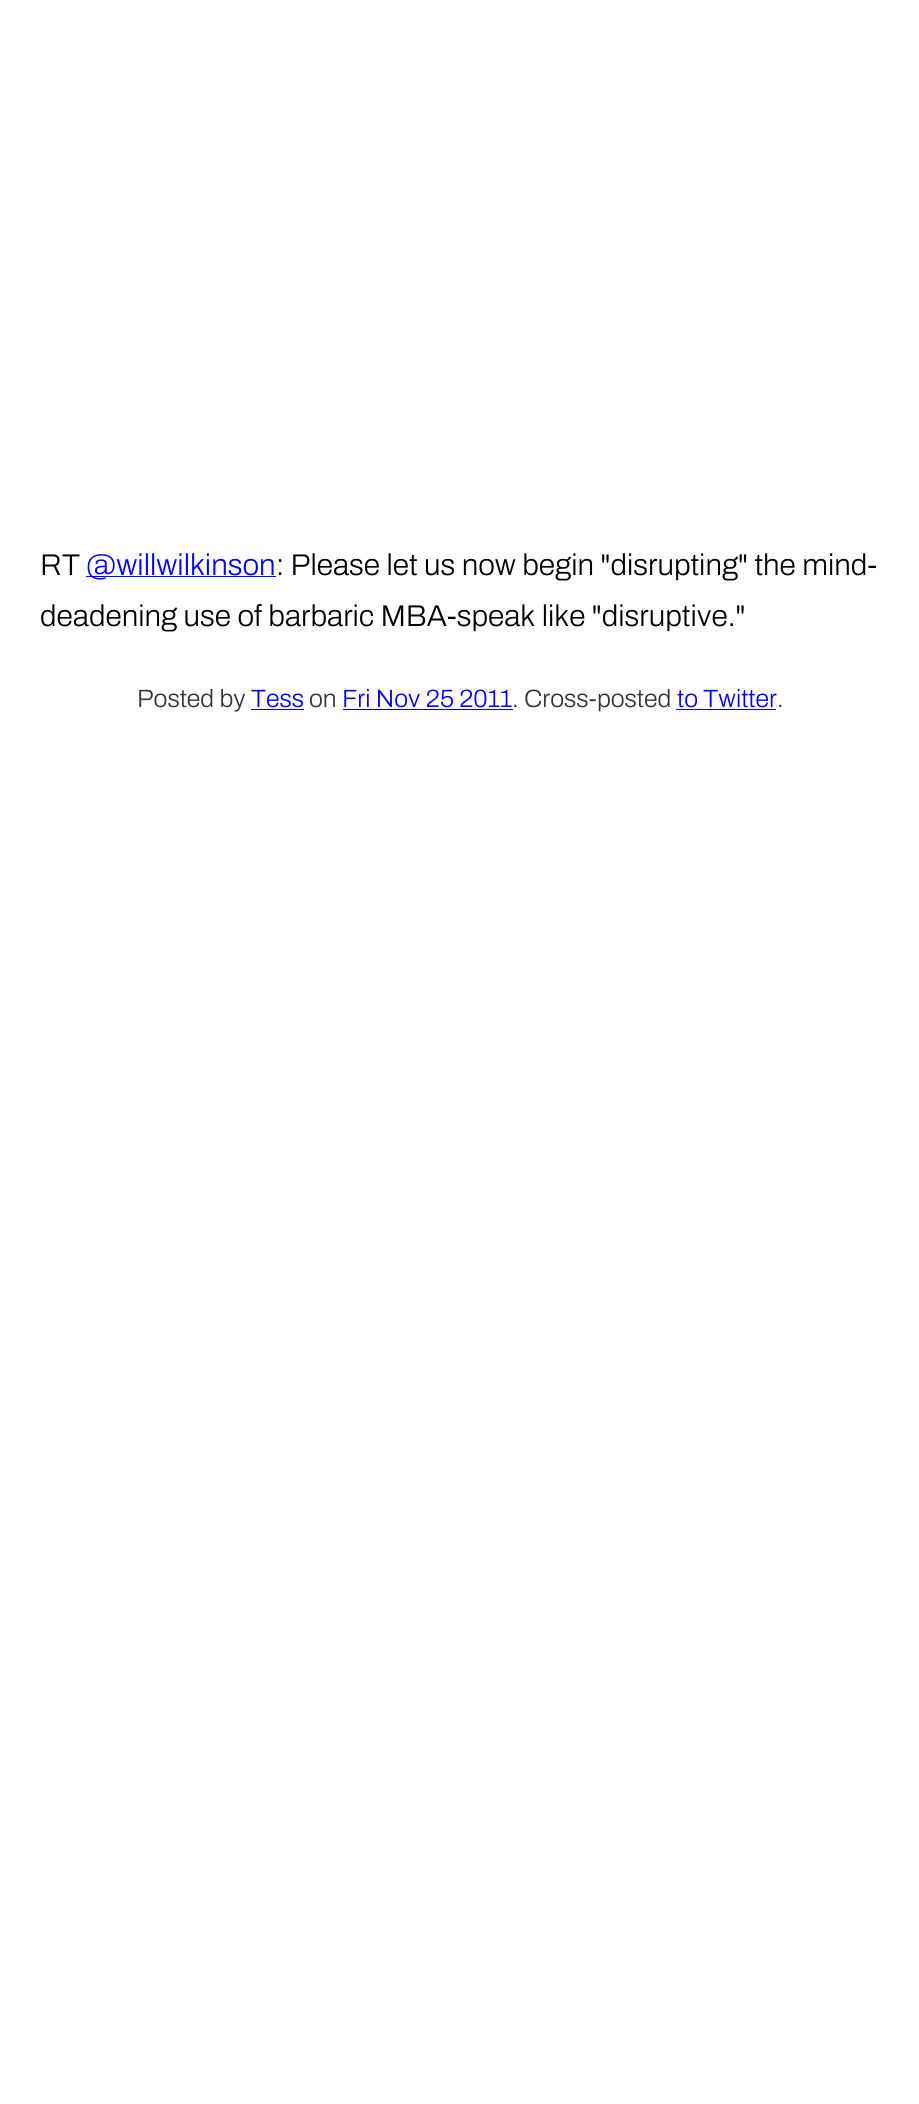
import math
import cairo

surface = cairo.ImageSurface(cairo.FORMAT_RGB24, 919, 2104)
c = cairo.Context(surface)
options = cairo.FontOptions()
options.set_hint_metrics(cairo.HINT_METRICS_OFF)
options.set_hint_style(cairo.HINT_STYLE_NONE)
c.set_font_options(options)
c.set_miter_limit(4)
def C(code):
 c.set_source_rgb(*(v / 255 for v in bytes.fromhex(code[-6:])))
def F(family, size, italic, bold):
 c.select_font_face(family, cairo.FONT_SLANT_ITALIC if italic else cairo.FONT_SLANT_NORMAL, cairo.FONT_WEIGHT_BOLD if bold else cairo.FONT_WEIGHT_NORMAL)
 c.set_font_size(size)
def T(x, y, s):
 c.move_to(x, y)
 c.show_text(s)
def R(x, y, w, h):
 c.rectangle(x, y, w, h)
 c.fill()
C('ffffff')
c.paint()
F('Archivo Light',30,0,0)
C('000000')
T(40,575,'RT')
C('0000ff')
R(86,576,190,1)
T(86,575,'@willwilkinson')
C('000000')
T(276,575,': Please let us now begin "disrupting" the mind-')
T(40,626,'deadening use of barbaric MBA-speak like "disruptive."')
F('Archivo Light',25,0,0)
C('333333')
T(137,707,'Posted by')
C('0000ff')
T(251,707,'Tess')
R(251,709,53,1)
C('333333')
T(309,707,'on')
C('0000ff')
T(342,707,'Fri Nov 25 2011')
C('333333')
T(512,707,'. Cross-posted')
C('0000ff')
R(343,709,170,1)
T(677,707,'to Twitter')
C('333333')
T(777,707,'.')
C('0000ff')
R(676,709,100,1)
surface.write_to_png('o.png')
